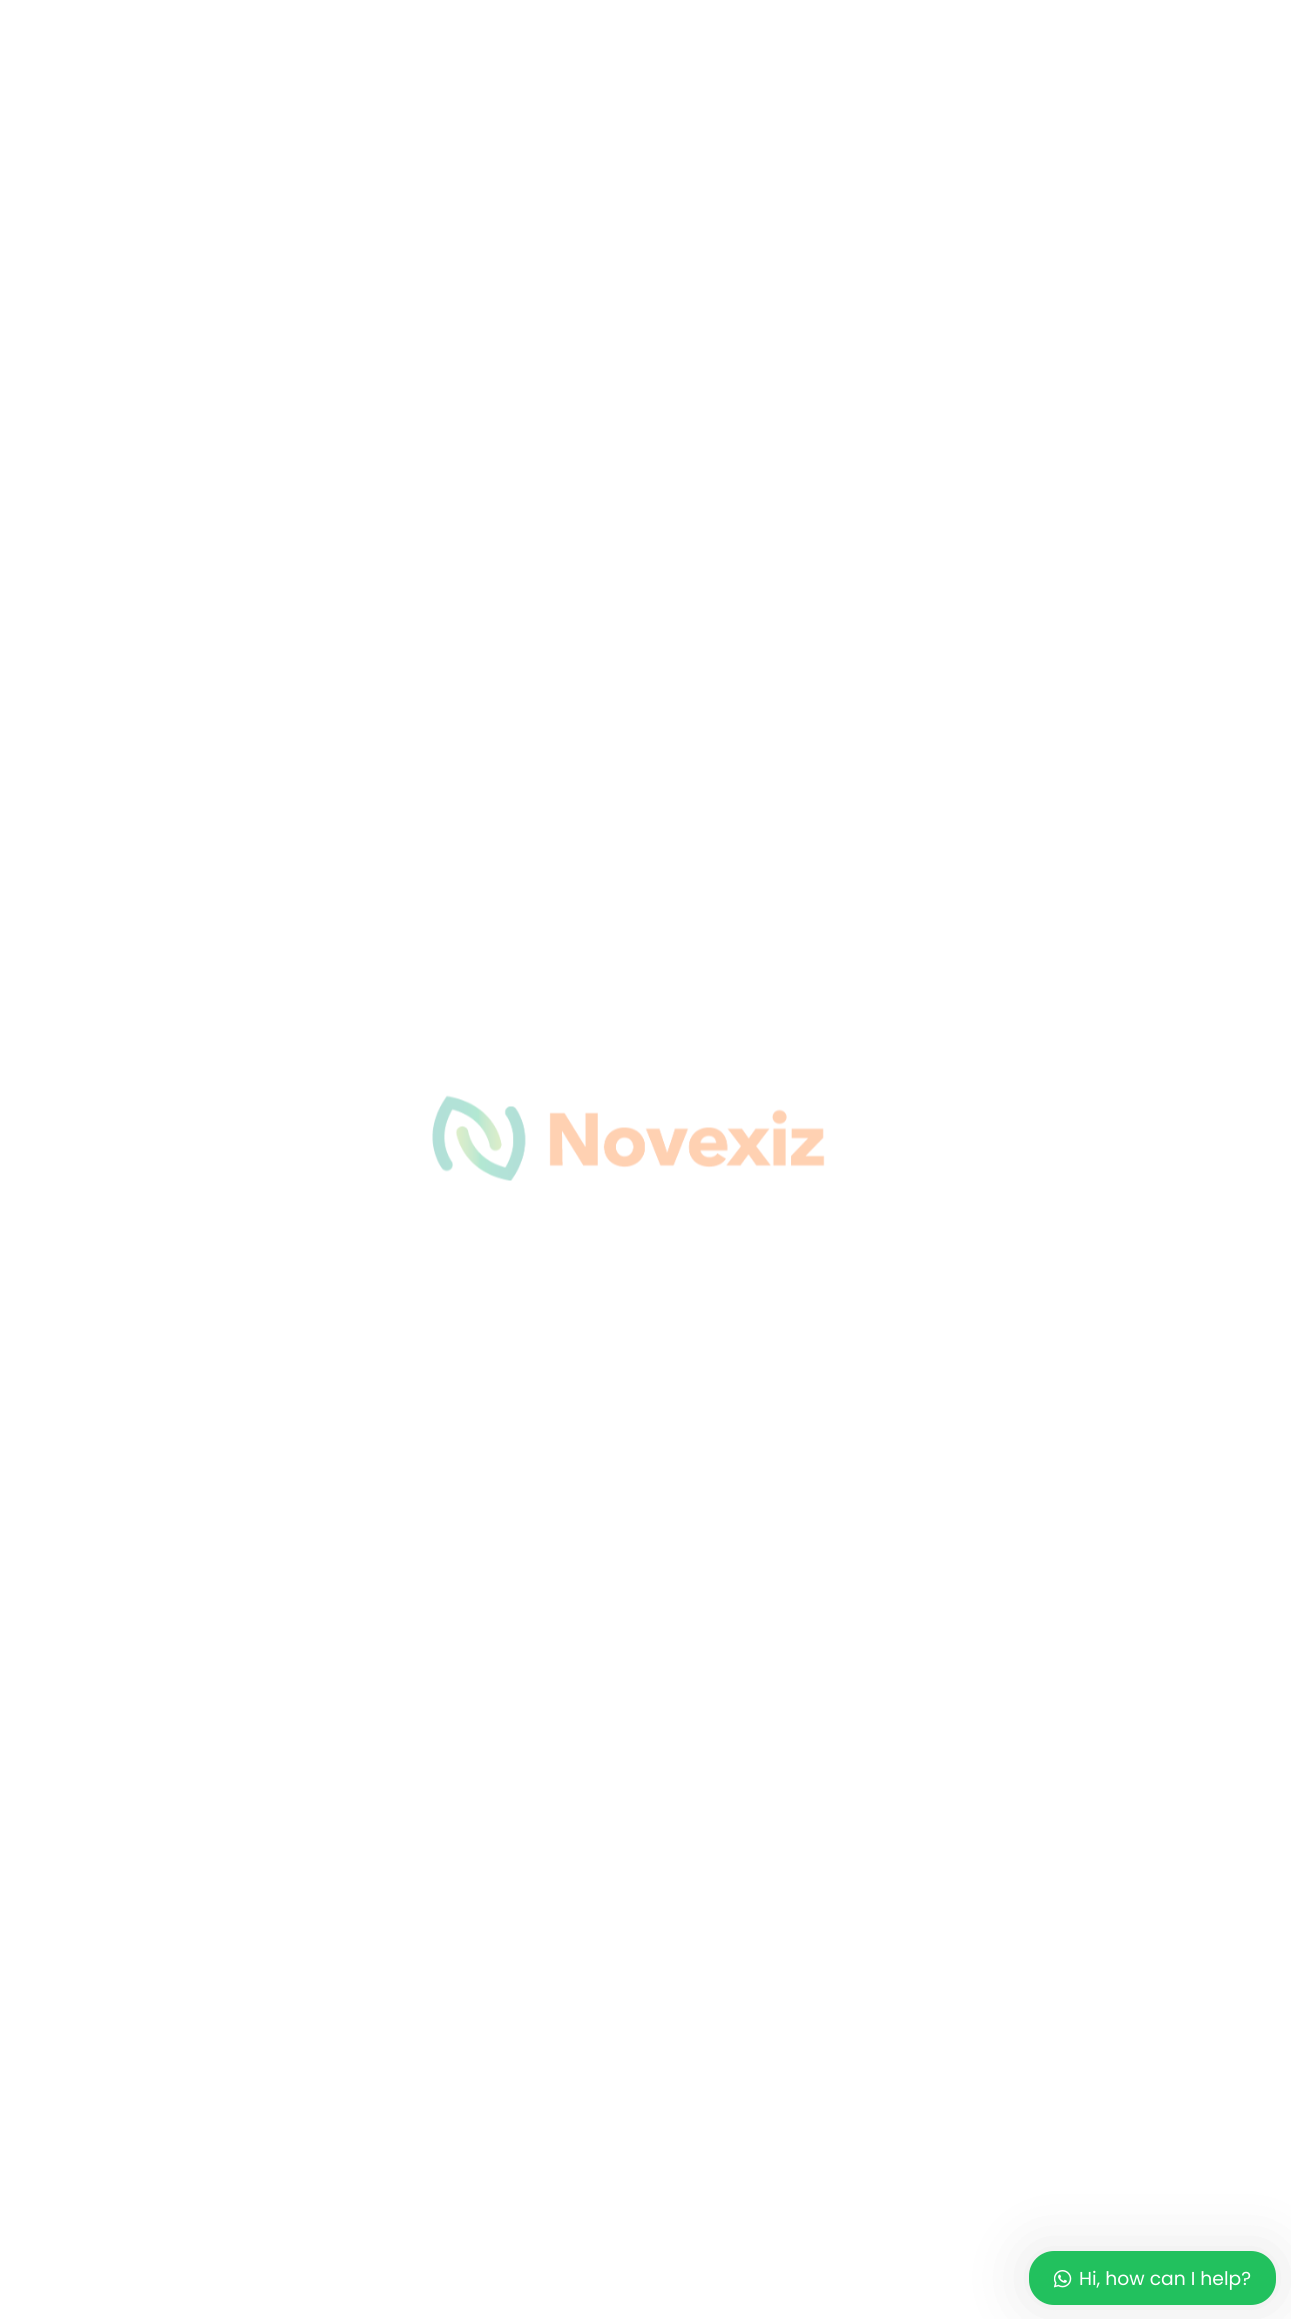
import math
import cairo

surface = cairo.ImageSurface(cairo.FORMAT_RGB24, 1291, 2319)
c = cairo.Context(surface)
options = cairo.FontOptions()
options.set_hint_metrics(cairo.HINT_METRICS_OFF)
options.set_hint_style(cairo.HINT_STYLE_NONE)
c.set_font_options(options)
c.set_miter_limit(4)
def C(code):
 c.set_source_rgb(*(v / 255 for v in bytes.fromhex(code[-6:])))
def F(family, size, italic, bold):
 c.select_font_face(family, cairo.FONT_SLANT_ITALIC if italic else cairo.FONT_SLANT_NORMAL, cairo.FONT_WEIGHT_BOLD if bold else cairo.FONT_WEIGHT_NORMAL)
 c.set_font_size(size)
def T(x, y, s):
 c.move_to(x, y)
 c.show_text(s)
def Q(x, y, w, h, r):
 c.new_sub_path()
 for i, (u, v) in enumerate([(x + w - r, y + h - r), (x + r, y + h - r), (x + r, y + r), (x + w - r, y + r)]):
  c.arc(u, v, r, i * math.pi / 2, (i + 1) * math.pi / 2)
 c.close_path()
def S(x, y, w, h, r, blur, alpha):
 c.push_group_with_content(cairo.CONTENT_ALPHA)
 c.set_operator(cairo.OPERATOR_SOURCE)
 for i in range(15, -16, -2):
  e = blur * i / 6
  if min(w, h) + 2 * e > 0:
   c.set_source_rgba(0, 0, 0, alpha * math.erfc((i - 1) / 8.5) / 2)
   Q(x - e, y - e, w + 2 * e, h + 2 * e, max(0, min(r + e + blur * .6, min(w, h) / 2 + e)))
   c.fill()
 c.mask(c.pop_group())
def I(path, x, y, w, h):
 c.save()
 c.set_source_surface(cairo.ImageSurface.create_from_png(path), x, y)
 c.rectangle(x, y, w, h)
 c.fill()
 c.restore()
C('ffffff')
c.paint()
I('1.png',432,1095,393,86)
C('000000')
S(1029,2251,247,54,25,31,.1)
C('22c15e')
Q(1029,2251,247,54,25)
c.fill()
I('2.png',1054,2270,18,18)
F('Poppins',18.75,0,0)
C('ffffff')
T(1079,2285,'Hi, how can I help?')
surface.write_to_png('o.png')
